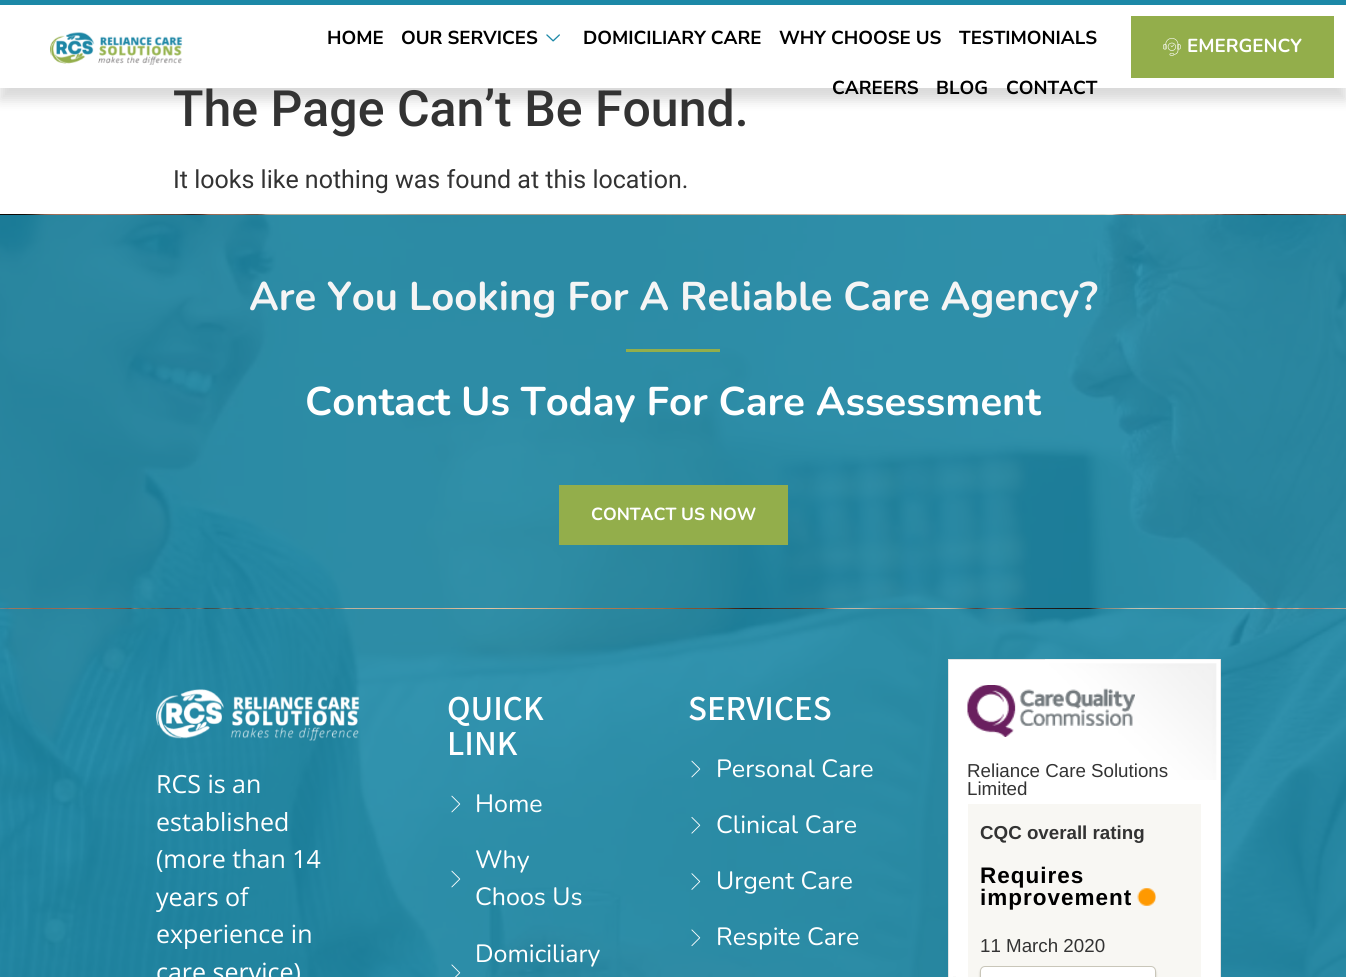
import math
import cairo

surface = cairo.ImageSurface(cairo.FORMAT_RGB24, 1346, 977)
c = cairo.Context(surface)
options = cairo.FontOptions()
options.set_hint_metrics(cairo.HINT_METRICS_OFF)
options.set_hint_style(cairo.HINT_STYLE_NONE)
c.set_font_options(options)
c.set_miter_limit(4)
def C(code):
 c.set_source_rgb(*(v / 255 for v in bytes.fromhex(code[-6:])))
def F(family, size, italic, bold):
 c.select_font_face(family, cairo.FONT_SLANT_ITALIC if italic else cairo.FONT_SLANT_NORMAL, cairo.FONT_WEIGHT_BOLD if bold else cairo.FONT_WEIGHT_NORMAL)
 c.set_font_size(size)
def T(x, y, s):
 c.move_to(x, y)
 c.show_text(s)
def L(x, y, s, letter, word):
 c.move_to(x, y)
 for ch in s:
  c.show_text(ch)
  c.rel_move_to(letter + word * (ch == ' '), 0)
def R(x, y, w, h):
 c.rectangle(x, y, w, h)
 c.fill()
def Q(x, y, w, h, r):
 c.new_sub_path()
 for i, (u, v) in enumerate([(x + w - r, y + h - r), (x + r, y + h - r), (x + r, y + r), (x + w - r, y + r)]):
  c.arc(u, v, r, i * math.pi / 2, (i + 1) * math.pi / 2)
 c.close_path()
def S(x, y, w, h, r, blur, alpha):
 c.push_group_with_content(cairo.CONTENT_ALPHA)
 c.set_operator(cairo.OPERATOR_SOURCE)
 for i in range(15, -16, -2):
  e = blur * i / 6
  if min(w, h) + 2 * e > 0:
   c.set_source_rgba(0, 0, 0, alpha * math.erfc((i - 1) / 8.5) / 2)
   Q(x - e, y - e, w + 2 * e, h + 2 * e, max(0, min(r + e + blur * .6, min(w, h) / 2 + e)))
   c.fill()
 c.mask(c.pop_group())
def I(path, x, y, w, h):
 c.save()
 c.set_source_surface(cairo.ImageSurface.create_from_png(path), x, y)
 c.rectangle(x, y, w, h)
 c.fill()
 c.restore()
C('ffffff')
c.paint()
C('000000')
S(0,13,1346,87,0,6,.15)
C('ffffff')
R(0,5,1346,83)
C('1c88a7')
R(0,0,1346,5)
I('1.png',50,32,133,33)
F('Nunito Sans',18.75,0,1)
C('000000')
T(327,44,'HOME')
T(401,44,'OUR SERVICES')
I('2.png',546,34,14,8)
T(583,44,'DOMICILIARY CARE')
T(779,44,'WHY CHOOSE US')
T(959,44,'TESTIMONIALS')
T(832,94,'CAREERS')
T(936,94,'BLOG')
T(1006,94,'CONTACT')
C('93ae4b')
R(1131,16,203,62)
I('3.png',1163,38,18,18)
F('Nunito',18.75,0,1)
C('ffffff')
T(1187,52,'EMERGENCY')
F('Roboto Medium',50,0,0)
C('333333')
T(173,126,'The Page Can’t Be Found.')
F('Roboto',25,0,0)
T(173,188,'It looks like nothing was found at this location.')
I('4.png',0,214,1346,394)
F('Nunito',40,0,1)
C('f5f5f5')
T(249,310,'Are You Looking For A Reliable Care Agency?')
C('93ae4b')
R(626,349,94,3)
C('ffffff')
T(305,415,'Contact Us Today For Care Assessment')
C('93ae4b')
R(559,485,229,60)
F('Nunito',17.5,0,1)
C('ffffff')
T(591,520,'CONTACT US NOW')
I('5.png',0,608,1346,369)
I('6.png',156,689,204,52)
F('Open Sans',25,0,0)
T(156,793,'RCS is an')
T(156,831,'established')
T(156,868,'(more than 14')
T(156,906,'years of')
T(156,943,'experience in')
T(156,981,'care service)')
F('Assistant SemiBold',35,0,0)
T(447,720,'QUICK')
T(447,755,'LINK')
I('7.png',451,795,10,18)
F('Nunito',25,0,0)
T(475,812,'Home')
I('8.png',451,870,10,18)
T(475,868,'Why')
T(475,905,'Choos Us')
T(475,962,'Domiciliary')
I('9.png',451,964,10,13)
F('Assistant SemiBold',35,0,0)
T(688,720,'SERVICES')
I('10.png',691,760,10,18)
F('Nunito',25,0,0)
T(716,777,'Personal Care')
I('11.png',691,817,10,17)
T(716,833,'Clinical Care')
I('12.png',691,873,10,17)
T(716,889,'Urgent Care')
I('13.png',691,929,10,18)
T(716,945,'Respite Care')
R(949,660,271,317)
C('fafafa')
R(953,976,3,1)
c.rectangle(948.5,659.5,272,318)
C('e4e4e4')
c.set_line_width(1)
c.stroke()
I('14.png',1045,659,175,121)
I('15.png',967,685,168,52)
F('Liberation Sans',18.75,0,0)
C('333333')
T(967,777,'Reliance Care Solutions')
T(967,795,'Limited')
C('f8f7f3')
R(968,804,233,173)
F('Liberation Sans',18.75,0,1)
C('333333')
T(980,839,'CQC overall rating')
F('Liberation Sans',22.5,0,1)
C('000000')
L(980,883,'Requires',1,0)
L(980,905,'improvement',1,0)
I('16.png',1137,888,19,18)
F('Liberation Sans',18.75,0,0)
C('333333')
T(980,952,'11 March 2020')
C('c9c6b9')
S(980,968,176,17,5,1,1)
C('ffffff')
Q(980.5,966.5,175,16,4.5)
c.fill_preserve()
C('c9c6b9')
c.stroke()
surface.write_to_png('o.png')
